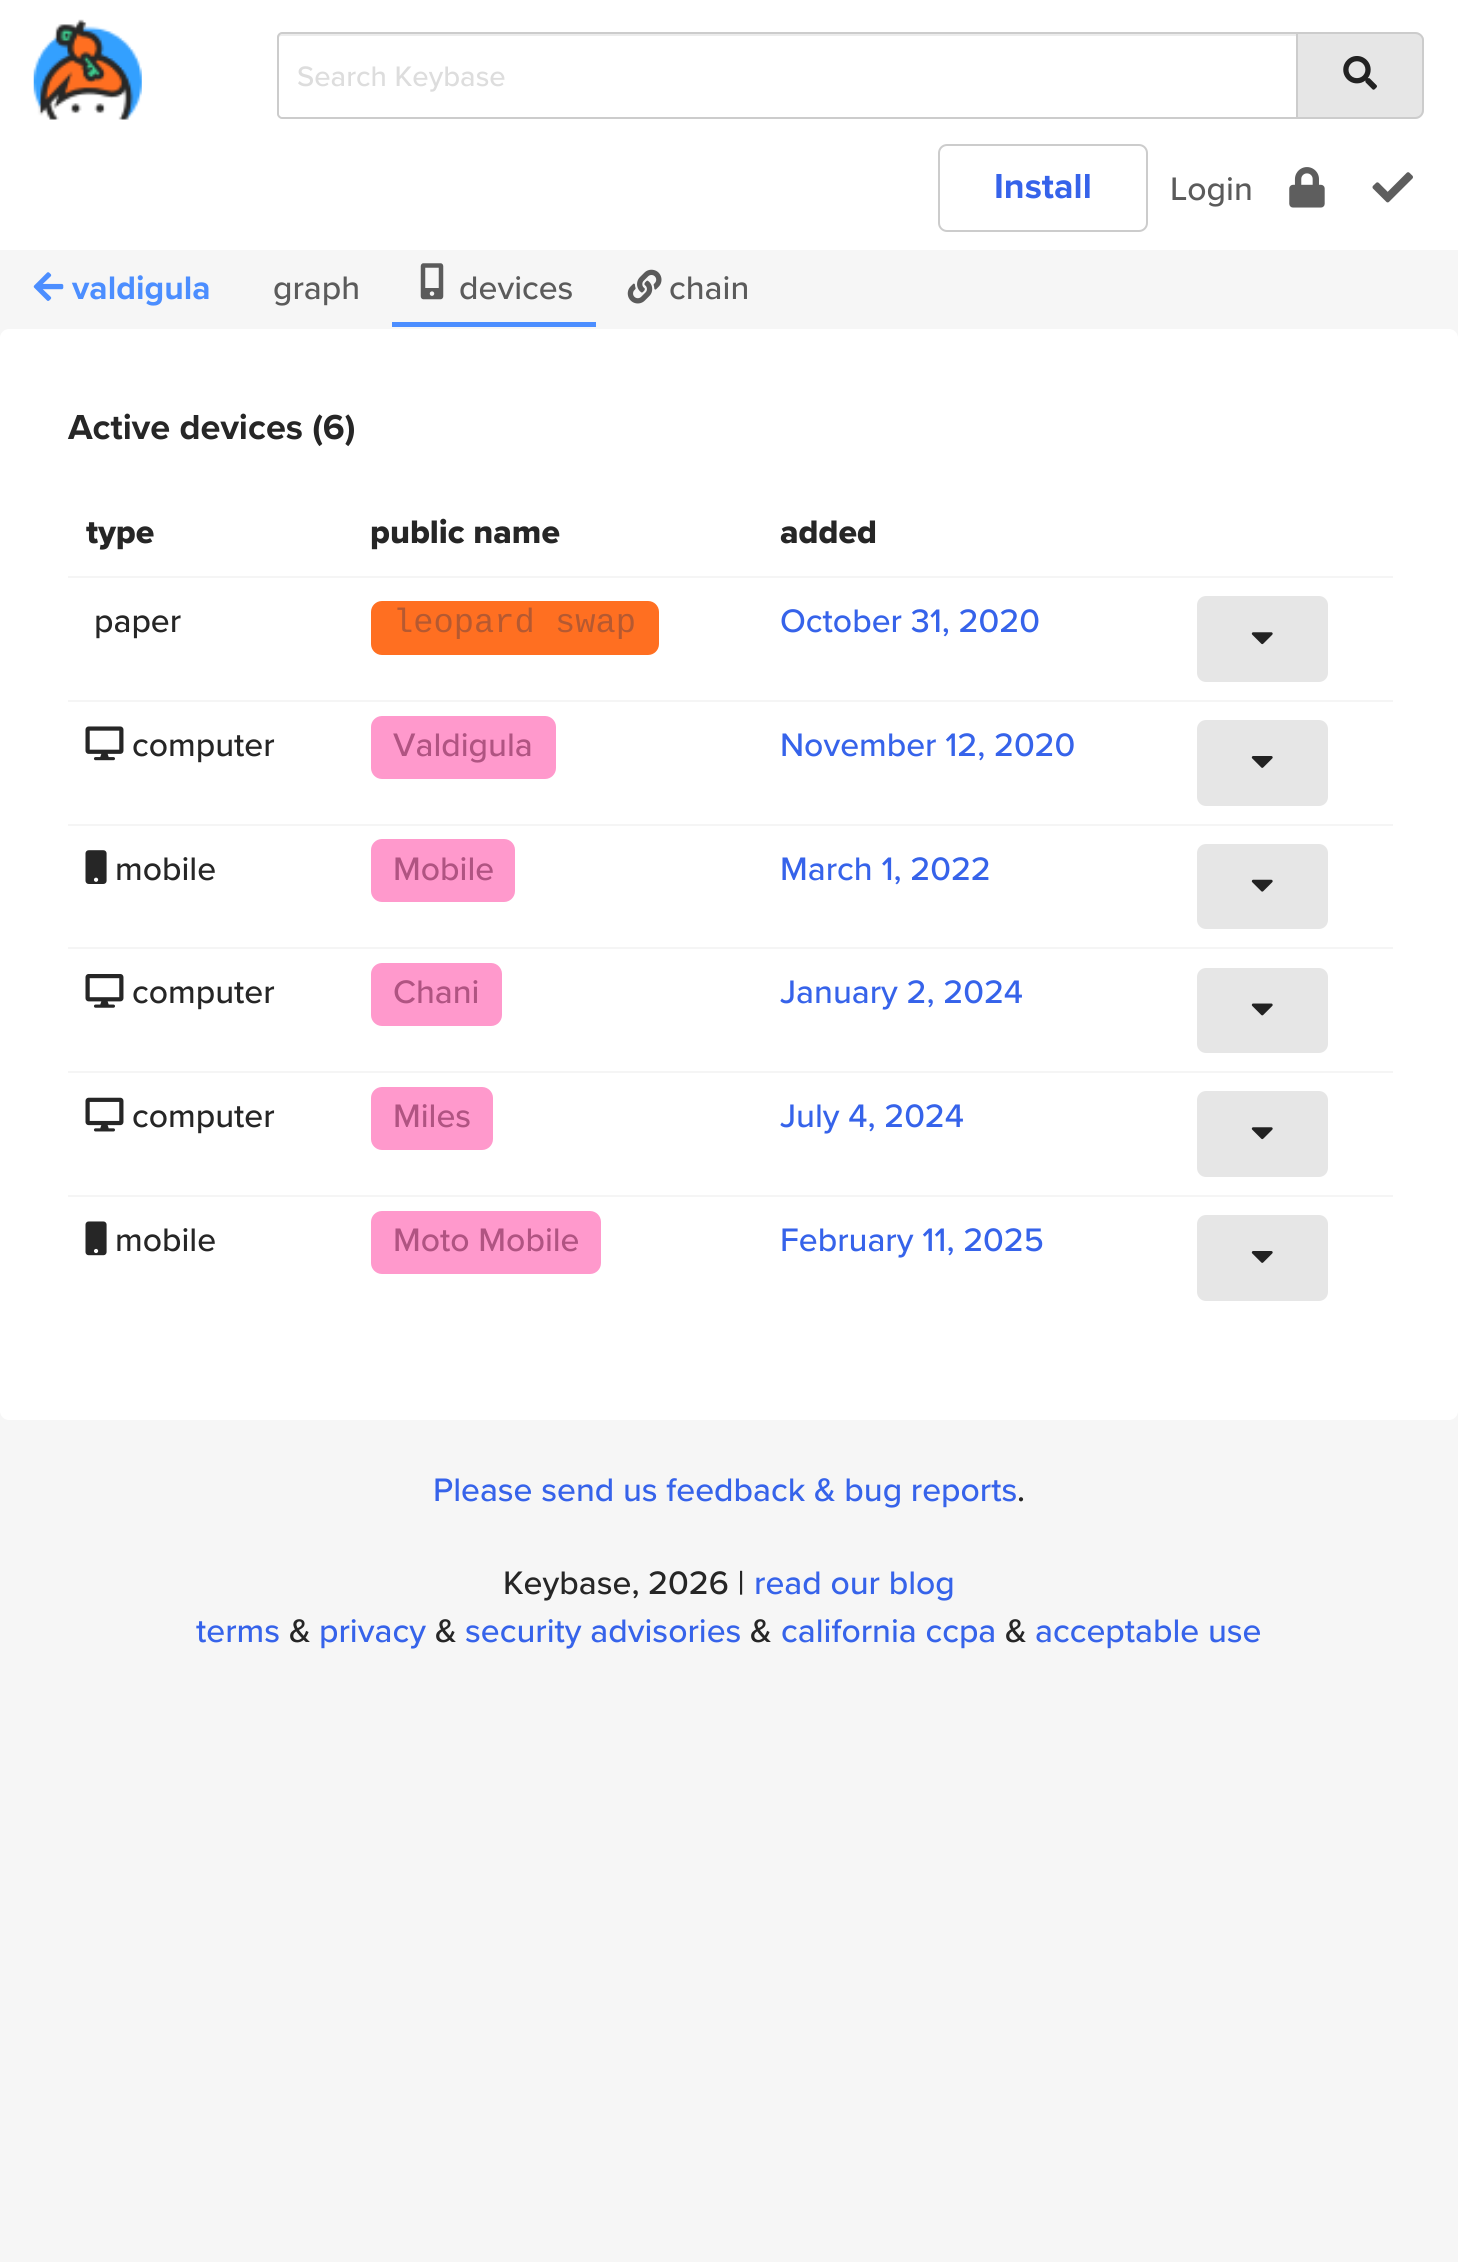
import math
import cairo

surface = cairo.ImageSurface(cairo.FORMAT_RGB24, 1458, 2262)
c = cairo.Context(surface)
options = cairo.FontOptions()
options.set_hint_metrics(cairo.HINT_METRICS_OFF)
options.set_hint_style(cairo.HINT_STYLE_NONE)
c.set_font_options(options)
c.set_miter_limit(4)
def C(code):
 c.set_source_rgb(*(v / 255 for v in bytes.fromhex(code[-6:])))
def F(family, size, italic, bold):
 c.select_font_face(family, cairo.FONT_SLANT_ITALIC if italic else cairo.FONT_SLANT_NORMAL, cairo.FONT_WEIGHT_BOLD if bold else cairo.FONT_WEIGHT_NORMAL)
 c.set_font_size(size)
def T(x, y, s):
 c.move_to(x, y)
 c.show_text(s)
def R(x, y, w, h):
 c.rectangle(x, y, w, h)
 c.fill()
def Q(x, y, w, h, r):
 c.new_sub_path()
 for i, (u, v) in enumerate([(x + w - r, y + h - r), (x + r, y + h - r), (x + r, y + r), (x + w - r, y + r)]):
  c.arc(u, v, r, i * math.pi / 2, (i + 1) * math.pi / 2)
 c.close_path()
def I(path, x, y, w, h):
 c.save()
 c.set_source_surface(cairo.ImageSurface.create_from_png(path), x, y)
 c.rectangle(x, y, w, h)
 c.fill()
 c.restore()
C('f6f6f6')
c.paint()
C('ffffff')
R(0,0,1458,250)
I('1.png',33,19,109,101)
C('ececec')
c.new_path()
c.move_to(281,36)
c.line_to(1296,36)
c.line_to(1296,34)
c.line_to(281,34)
c.line_to(279,35)
c.line_to(279,38)
c.curve_to(279,37,280,36,281,36)
c.close_path()
c.fill()
c.new_path()
c.move_to(282,33)
c.line_to(1297,33)
c.line_to(1297,118)
c.line_to(282,118)
c.curve_to(280,118,278,116,278,114)
c.line_to(278,37)
c.curve_to(278,35,280,33,282,33)
c.close_path()
C('cccccc')
c.stroke()
F('Proxima Nova Medium',29.25,0,0)
C('dddddd')
T(297,86,'Search Keybase')
C('e6e6e6')
c.new_path()
c.move_to(1298,32)
c.line_to(1415,32)
c.curve_to(1420,32,1424,36,1424,41)
c.line_to(1424,110)
c.curve_to(1424,115,1420,119,1415,119)
c.line_to(1298,119)
c.close_path()
c.fill()
C('cccccc')
c.set_fill_rule(cairo.FILL_RULE_EVEN_ODD)
c.new_path()
c.move_to(1298,32)
c.line_to(1415,32)
c.curve_to(1420,32,1424,36,1424,40)
c.line_to(1424,110)
c.curve_to(1424,115,1420,119,1415,119)
c.line_to(1298,119)
c.close_path()
c.move_to(1298,34)
c.line_to(1415,34)
c.curve_to(1419,34,1422,37,1422,40)
c.line_to(1422,110)
c.curve_to(1422,114,1419,117,1415,117)
c.line_to(1298,117)
c.close_path()
c.fill()
I('2.png',1343,56,34,34)
Q(939,145,208,86,8)
c.stroke()
F('Proxima Nova',36,0,1)
C('3663ea')
T(994,198,'Install')
F('Proxima Nova Medium',33.75,0,0)
C('5b5b5b')
T(1170,200,'Login')
I('3.png',1289,167,36,41)
I('4.png',1372,172,41,31)
I('5.png',33,272,31,29)
F('Proxima Nova',33.75,0,1)
C('4c8eff')
T(72,299,'valdigula')
F('Proxima Nova Medium',33.75,0,0)
C('5b5b5b')
T(273,299,'graph')
C('4c8eff')
R(392,322,204,5)
I('6.png',420,263,24,37)
C('5b5b5b')
T(459,299,'devices')
I('7.png',627,269,35,35)
T(669,299,'chain')
C('ffffff')
Q(0,329,1458,1091,9)
c.fill()
F('Proxima Nova',36,0,1)
C('262626')
T(68,439,'Active devices (6)')
F('Proxima Nova ExtraBold',33.75,0,0)
T(86,543,'type')
T(370,543,'public name')
T(780,543,'added')
C('f5f5f5')
R(68,576,1325,2)
C('e6e6e6')
Q(1197,596,131,86,9)
c.fill()
I('8.png',1251,632,22,13)
F('Proxima Nova Medium',33.75,0,0)
C('262626')
T(94,632,'paper')
C('ff6f21')
Q(371,601,288,54,11)
c.fill()
F('Liberation Mono',33.75,0,0)
C('b55931')
T(393,632,'leopard swap')
F('Proxima Nova Medium',33.75,0,0)
C('3663ea')
T(780,632,'October 31, 2020')
C('f5f5f5')
R(68,700,1325,2)
C('e6e6e6')
Q(1197,720,131,86,9)
c.fill()
I('9.png',1251,756,22,12)
I('10.png',85,726,39,35)
C('262626')
T(132,756,'computer')
C('ff99cc')
Q(371,716,185,63,11)
c.fill()
C('b05482')
T(393,756,'Valdigula')
C('3663ea')
T(780,756,'November 12, 2020')
C('f5f5f5')
R(68,824,1325,2)
C('e6e6e6')
Q(1197,844,131,85,9)
c.fill()
I('11.png',1251,879,22,13)
I('12.png',85,850,22,34)
C('262626')
T(115,880,'mobile')
C('ff99cc')
Q(371,839,144,63,11)
c.fill()
C('b05482')
T(393,880,'Mobile')
C('3663ea')
T(780,880,'March 1, 2022')
C('f5f5f5')
R(68,947,1325,2)
C('e6e6e6')
Q(1197,968,131,85,9)
c.fill()
I('13.png',1251,1003,22,13)
I('14.png',85,974,39,34)
C('262626')
T(132,1003,'computer')
C('ff99cc')
Q(371,963,131,63,11)
c.fill()
C('b05482')
T(393,1003,'Chani')
C('3663ea')
T(780,1003,'January 2, 2024')
C('f5f5f5')
R(68,1071,1325,2)
C('e6e6e6')
Q(1197,1091,131,86,9)
c.fill()
I('8.png',1251,1127,22,13)
I('15.png',85,1097,39,35)
C('262626')
T(132,1127,'computer')
C('ff99cc')
Q(371,1087,122,63,11)
c.fill()
C('b05482')
T(393,1127,'Miles')
C('3663ea')
T(780,1127,'July 4, 2024')
C('f5f5f5')
R(68,1195,1325,2)
C('e6e6e6')
Q(1197,1215,131,86,9)
c.fill()
I('9.png',1251,1251,22,12)
I('16.png',85,1221,22,35)
C('262626')
T(115,1251,'mobile')
C('ff99cc')
Q(371,1211,230,63,11)
c.fill()
C('b05482')
T(393,1251,'Moto Mobile')
C('3663ea')
T(780,1251,'February 11, 2025')
T(433,1501,'Please send us feedback & bug reports')
C('262626')
T(1017,1501,'.')
T(503,1594,'Keybase, 2026 |')
C('3663ea')
T(754,1594,'read our blog')
T(196,1642,'terms')
C('262626')
T(289,1642,'&')
C('3663ea')
T(319,1642,'privacy')
C('262626')
T(435,1642,'&')
C('3663ea')
T(465,1642,'security advisories')
C('262626')
T(750,1642,'&')
C('3663ea')
T(781,1642,'california ccpa')
C('262626')
T(1005,1642,'&')
C('3663ea')
T(1035,1642,'acceptable use')
surface.write_to_png('o.png')
